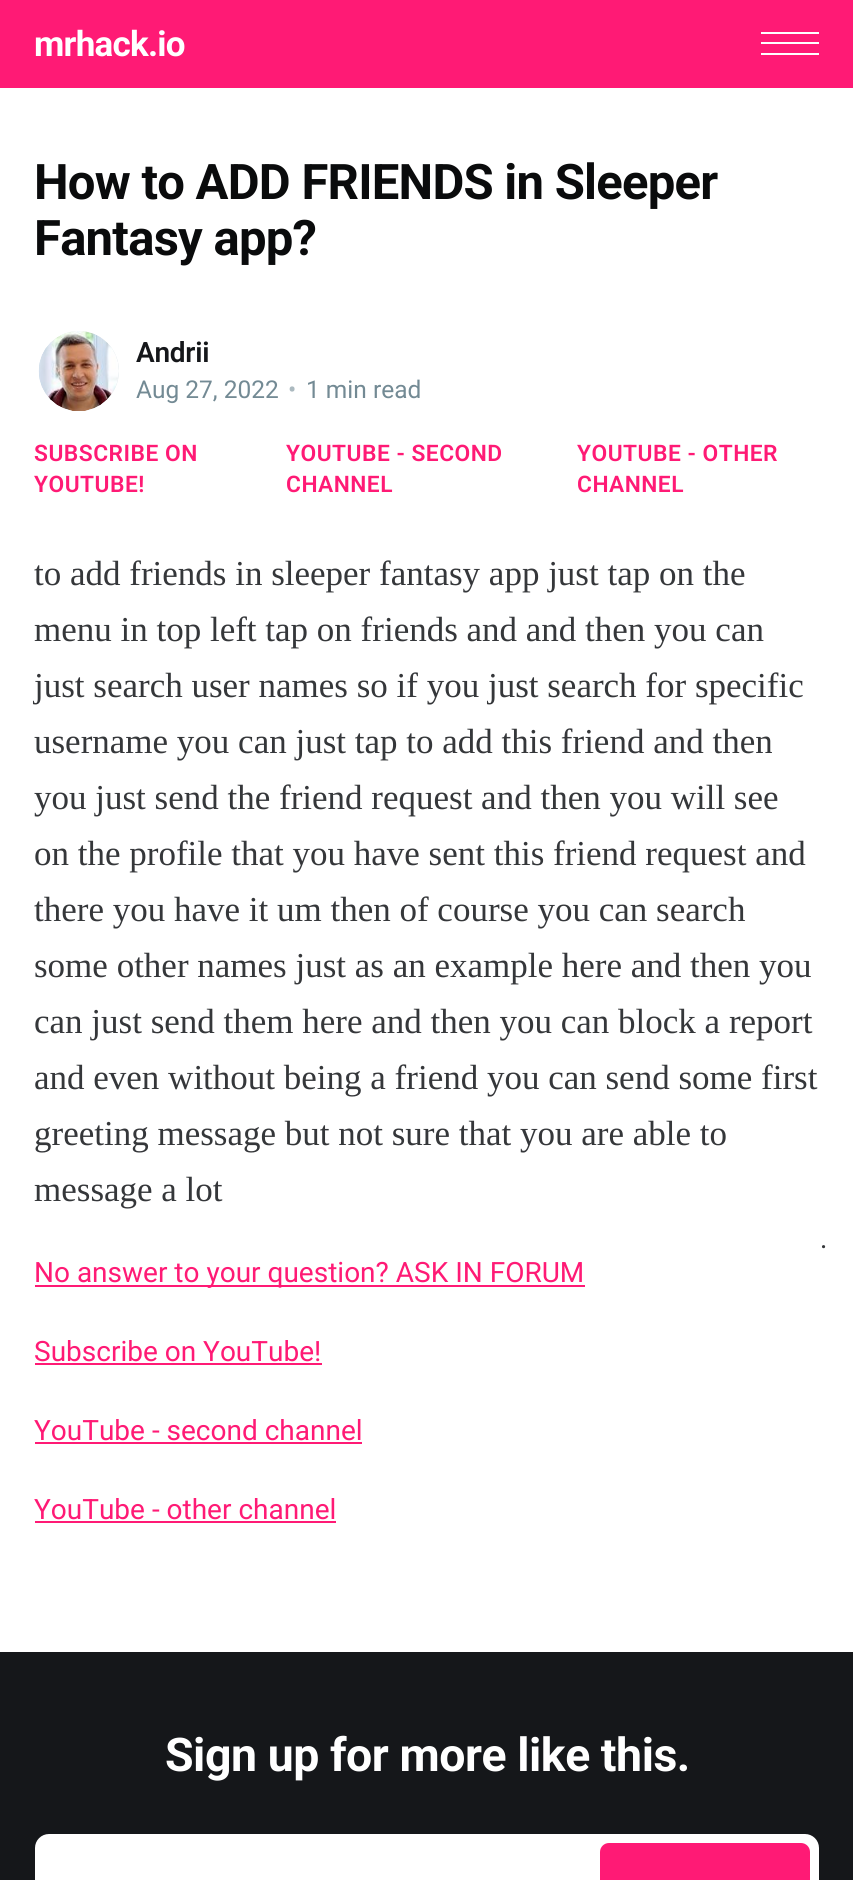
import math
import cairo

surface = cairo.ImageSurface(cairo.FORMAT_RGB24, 853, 1880)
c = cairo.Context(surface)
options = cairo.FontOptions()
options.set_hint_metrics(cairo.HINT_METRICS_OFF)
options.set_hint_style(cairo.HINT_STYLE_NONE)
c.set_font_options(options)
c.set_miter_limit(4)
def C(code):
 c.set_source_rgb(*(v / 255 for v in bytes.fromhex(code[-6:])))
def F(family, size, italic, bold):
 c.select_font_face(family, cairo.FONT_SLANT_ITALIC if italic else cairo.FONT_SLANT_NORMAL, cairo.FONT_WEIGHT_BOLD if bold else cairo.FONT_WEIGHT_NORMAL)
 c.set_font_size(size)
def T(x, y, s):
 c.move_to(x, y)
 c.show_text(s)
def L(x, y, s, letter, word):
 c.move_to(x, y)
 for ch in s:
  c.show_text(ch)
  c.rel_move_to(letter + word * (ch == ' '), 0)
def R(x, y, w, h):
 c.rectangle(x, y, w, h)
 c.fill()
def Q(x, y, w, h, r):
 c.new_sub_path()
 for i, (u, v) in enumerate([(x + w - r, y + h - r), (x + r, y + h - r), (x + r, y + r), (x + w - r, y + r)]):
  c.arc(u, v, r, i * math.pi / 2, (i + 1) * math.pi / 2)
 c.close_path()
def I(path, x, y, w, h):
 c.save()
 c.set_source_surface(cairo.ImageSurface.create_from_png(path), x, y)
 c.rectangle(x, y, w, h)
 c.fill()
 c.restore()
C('ffffff')
c.paint()
C('ff1a75')
R(0,0,853,88)
F('Roboto',35,0,1)
C('ffffff')
L(34,56,'mrhack.io',-.75,0)
R(761,32,58,2)
R(761,53,58,2)
R(761,42,58,2)
F('Roboto',49,0,1)
C('0a0b0c')
L(34,199,'How to ADD FRIENDS in Sleeper',-.75,0)
L(34,255,'Fantasy app?',-.75,0)
C('e4eaed')
c.new_path()
c.arc(79,371,40,0,2 * math.pi)
c.fill()
I('1.png',38,331,81,80)
F('Roboto SemiBold',28,0,0)
C('15171a')
L(136,362,'Andrii',-.25,0)
F('Roboto',24.5,0,0)
C('738a94')
T(136,398,'Aug 27, 2022')
C('abb9bf')
T(288,398,'•')
C('738a94')
T(306,398,'1 min read')
F('Roboto SemiBold',22.75,0,0)
C('ff1a75')
L(34,461,'SUBSCRIBE ON',.5,0)
L(34,492,'YOUTUBE!',.5,0)
L(286,461,'YOUTUBE - SECOND',.5,0)
L(286,492,'CHANNEL',.5,0)
L(577,461,'YOUTUBE - OTHER',.5,0)
L(577,492,'CHANNEL',.5,0)
F('Liberation Serif',35,0,0)
C('35373a')
T(34,585,'to add friends in sleeper fantasy app just tap on the')
T(34,641,'menu in top left tap on friends and and then you can')
T(34,697,'just search user names so if you just search for specific')
T(34,753,'username you can just tap to add this friend and then')
T(34,809,'you just send the friend request and then you will see')
T(34,865,'on the profile that you have sent this friend request and')
T(34,921,'there you have it um then of course you can search')
T(34,977,'some other names just as an example here and then you')
T(34,1033,'can just send them here and then you can block a report')
T(34,1089,'and even without being a friend you can send some first')
T(34,1145,'greeting message but not sure that you are able to')
T(34,1201,'message a lot')
F('Roboto',28,0,0)
T(820,1248,'.')
C('ff1a75')
R(35,1285,550,2)
T(34,1282,'No answer to your question? ASK IN FORUM')
T(34,1361,'Subscribe on YouTube!')
R(35,1363,287,2)
T(34,1440,'YouTube - second channel')
R(35,1442,327,2)
T(34,1519,'YouTube - other channel')
R(35,1521,301,2)
C('15171a')
R(0,1652,853,228)
F('Roboto',46.4,0,1)
C('ffffff')
L(165,1771,'Sign up for more like this.',-.45,0)
Q(35,1834,784,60,14)
c.fill()
C('ff1a75')
Q(600,1843,210,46,9)
c.fill()
surface.write_to_png('o.png')
